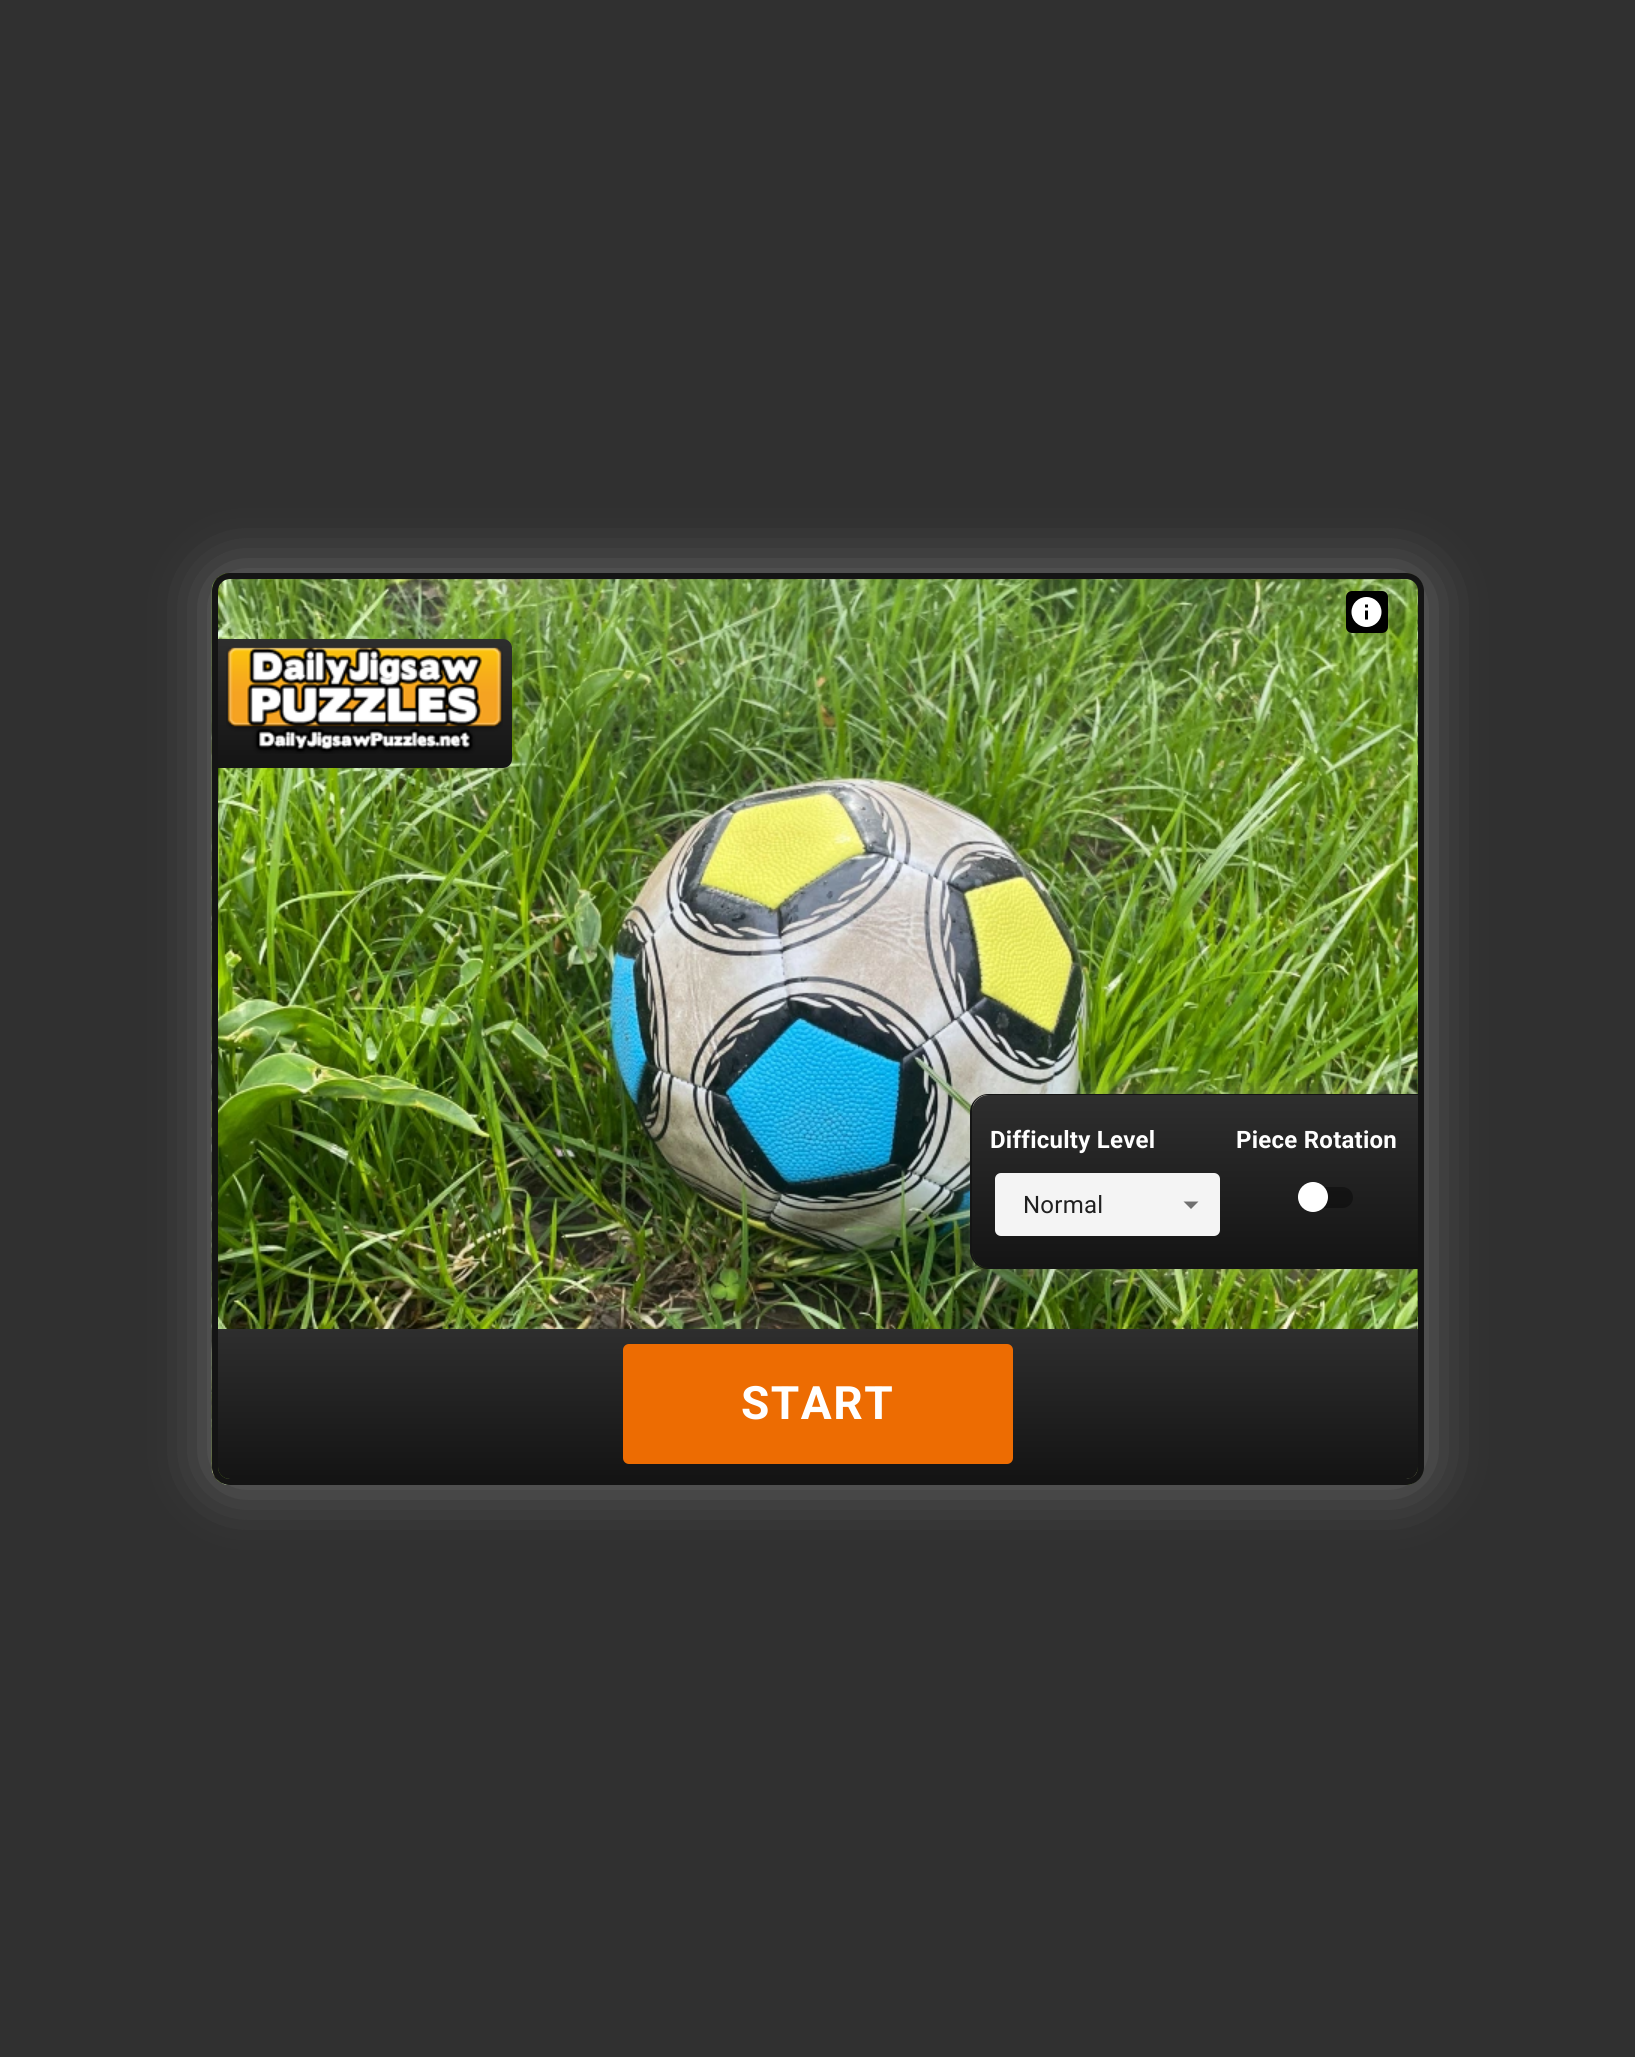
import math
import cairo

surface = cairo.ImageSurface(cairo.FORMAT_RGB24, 1635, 2057)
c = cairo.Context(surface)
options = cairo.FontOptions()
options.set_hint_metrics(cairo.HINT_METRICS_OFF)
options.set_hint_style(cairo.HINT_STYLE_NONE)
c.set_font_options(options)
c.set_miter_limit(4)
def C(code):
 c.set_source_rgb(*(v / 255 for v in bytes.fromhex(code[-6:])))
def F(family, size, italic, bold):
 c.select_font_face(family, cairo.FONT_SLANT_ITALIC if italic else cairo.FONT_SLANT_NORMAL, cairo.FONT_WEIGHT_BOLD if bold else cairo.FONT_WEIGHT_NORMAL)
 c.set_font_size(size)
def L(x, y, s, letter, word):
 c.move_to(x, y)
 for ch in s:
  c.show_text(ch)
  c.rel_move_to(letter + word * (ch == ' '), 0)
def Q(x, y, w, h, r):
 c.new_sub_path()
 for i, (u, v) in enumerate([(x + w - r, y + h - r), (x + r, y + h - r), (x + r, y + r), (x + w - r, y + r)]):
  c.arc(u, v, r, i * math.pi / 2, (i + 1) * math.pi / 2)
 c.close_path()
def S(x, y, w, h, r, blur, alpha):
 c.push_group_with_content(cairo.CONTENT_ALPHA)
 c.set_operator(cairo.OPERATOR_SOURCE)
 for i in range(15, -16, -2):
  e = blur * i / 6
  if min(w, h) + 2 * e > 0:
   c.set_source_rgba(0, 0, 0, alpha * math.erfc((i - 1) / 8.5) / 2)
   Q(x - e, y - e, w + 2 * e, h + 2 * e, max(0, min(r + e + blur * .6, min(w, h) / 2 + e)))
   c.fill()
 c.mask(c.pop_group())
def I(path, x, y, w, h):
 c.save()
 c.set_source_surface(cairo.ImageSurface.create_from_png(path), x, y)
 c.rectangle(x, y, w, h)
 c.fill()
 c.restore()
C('303030')
c.paint()
C('ffffff')
S(212,573,1212,912,18,30,.3)
I('1.png',211,573,1213,912)
Q(215,576,1206,906,15)
C('141414')
c.set_line_width(6)
c.stroke()
C('000000')
Q(1346,591,42,42,6)
c.fill()
I('2.png',1351,597,31,30)
gradient = cairo.LinearGradient(365,639,365,768)
gradient.add_color_stop_rgba(0,0.18,0.18,0.18,1)
gradient.add_color_stop_rgba(1,0.078,0.078,0.078,1)
c.set_source(gradient)
c.new_path()
c.move_to(218,639)
c.line_to(503,639)
c.curve_to(508,639,512,643,512,648)
c.line_to(512,759)
c.curve_to(512,764,508,768,503,768)
c.line_to(218,768)
c.close_path()
c.fill()
I('3.png',226,647,277,107)
c.save()
Q(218,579,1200,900,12)
c.clip()
c.set_fill_rule(cairo.FILL_RULE_EVEN_ODD)
c.new_path()
c.move_to(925,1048)
c.line_to(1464,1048)
c.line_to(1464,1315)
c.line_to(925,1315)
c.close_path()
c.move_to(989,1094)
c.line_to(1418,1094)
c.line_to(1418,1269)
c.line_to(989,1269)
c.curve_to(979,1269,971,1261,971,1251)
c.line_to(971,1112)
c.curve_to(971,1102,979,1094,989,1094)
c.close_path()
c.clip()
C('ffffff')
S(971,1094,447,175,18,15,.3)
c.restore()
gradient = cairo.LinearGradient(1195,1095,1195,1268)
gradient.add_color_stop_rgba(0,0.18,0.18,0.18,1)
gradient.add_color_stop_rgba(1,0.078,0.078,0.078,1)
c.set_source(gradient)
c.new_path()
c.move_to(989,1095)
c.line_to(1418,1095)
c.line_to(1418,1268)
c.line_to(989,1268)
c.curve_to(979.5,1268,972,1260.5,972,1251)
c.line_to(972,1112)
c.curve_to(972,1102.5,979.5,1095,989,1095)
c.close_path()
c.fill()
C('141414')
c.set_fill_rule(cairo.FILL_RULE_EVEN_ODD)
c.new_path()
c.move_to(988,1094)
c.line_to(1418,1094)
c.line_to(1418,1269)
c.line_to(988,1269)
c.curve_to(979,1269,970,1261,970,1251)
c.line_to(970,1112)
c.curve_to(970,1102,979,1094,988,1094)
c.close_path()
c.move_to(988,1095)
c.line_to(1418,1095)
c.line_to(1418,1268)
c.line_to(988,1268)
c.curve_to(979,1268,972,1260,972,1251)
c.line_to(972,1112)
c.curve_to(972,1102,979,1095,988,1095)
c.close_path()
c.fill()
F('Roboto',24,0,1)
C('ffffff')
L(990,1148,'Difficulty Level',.25,0)
C('f4f4f4')
Q(995,1173,225,63,6)
c.fill()
F('Roboto',24,0,0)
C('202020')
L(1023,1213,'Normal',.25,0)
C('707070')
c.set_fill_rule(cairo.FILL_RULE_WINDING)
c.new_path()
c.move_to(1183.5,1201.5)
c.line_to(1191,1209)
c.line_to(1198.5,1201.5)
c.close_path()
c.fill()
F('Roboto',24,0,1)
C('ffffff')
L(1236,1148,'Piece Rotation',.25,0)
c.set_source_rgba(0,0,0,0.38)
Q(1302,1187,51,21,10.5)
c.fill()
C('ffffff')
c.arc(1313,1197,15,0,2 * math.pi)
c.fill()
gradient = cairo.LinearGradient(818,1329,818,1479)
gradient.add_color_stop_rgba(0,0.18,0.18,0.18,1)
gradient.add_color_stop_rgba(1,0.078,0.078,0.078,1)
c.set_source(gradient)
c.new_path()
c.move_to(218,1329)
c.line_to(1418,1329)
c.line_to(1418,1467)
c.curve_to(1418,1473.5,1412.5,1479,1406,1479)
c.line_to(230,1479)
c.curve_to(223.5,1479,218,1473.5,218,1467)
c.close_path()
c.fill()
C('ed6c02')
Q(623,1344,390,120,6)
c.fill()
F('Roboto',46,0,1)
C('ffffff')
L(741,1419,'START',1.5,0)
surface.write_to_png('o.png')
